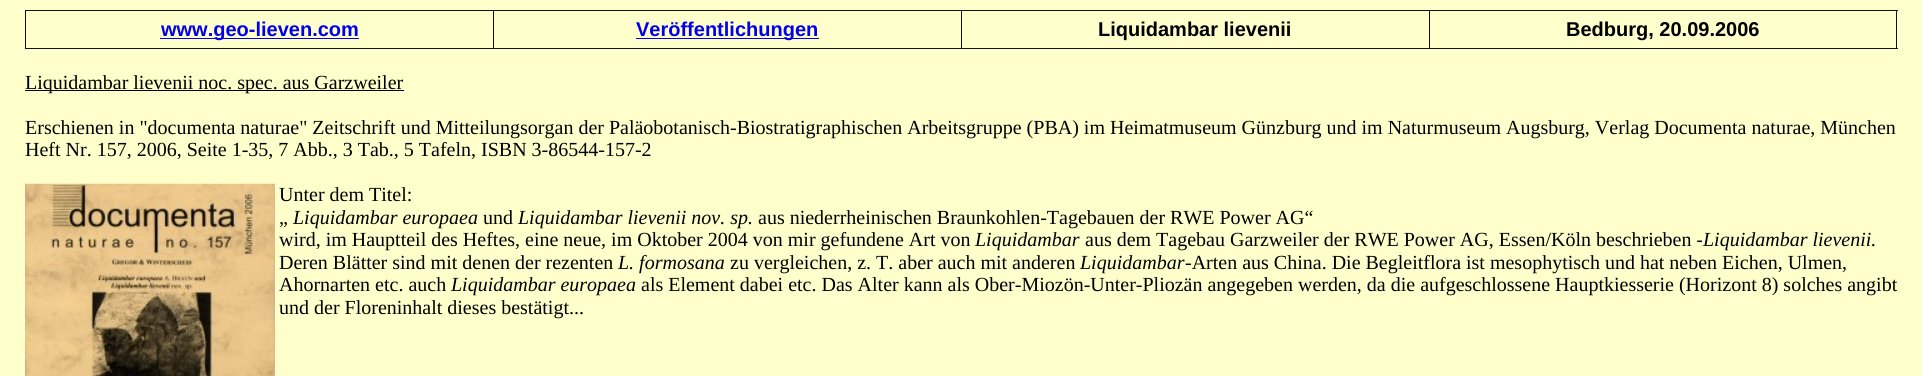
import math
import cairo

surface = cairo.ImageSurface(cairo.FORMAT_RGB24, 1922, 376)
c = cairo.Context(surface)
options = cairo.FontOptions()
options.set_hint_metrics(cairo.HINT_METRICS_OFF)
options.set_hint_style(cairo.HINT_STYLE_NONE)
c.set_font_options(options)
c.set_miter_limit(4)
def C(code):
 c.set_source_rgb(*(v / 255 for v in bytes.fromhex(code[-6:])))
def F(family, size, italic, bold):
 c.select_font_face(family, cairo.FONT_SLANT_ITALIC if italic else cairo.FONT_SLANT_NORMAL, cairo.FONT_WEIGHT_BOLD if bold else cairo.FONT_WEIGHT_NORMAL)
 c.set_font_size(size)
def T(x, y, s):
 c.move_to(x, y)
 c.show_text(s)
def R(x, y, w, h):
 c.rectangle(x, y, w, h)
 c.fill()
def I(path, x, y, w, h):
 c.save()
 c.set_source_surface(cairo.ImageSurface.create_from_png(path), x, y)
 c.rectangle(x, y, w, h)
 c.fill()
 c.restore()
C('ffffcc')
c.paint()
C('111111')
R(25,10,1873,1)
R(1896,10,1,39)
R(25,48,1873,1)
R(25,10,1,39)
C('0000ee')
R(160,38,199,1)
F('Liberation Sans',20,0,1)
T(161,36,'www.geo-lieven.com')
C('111111')
R(493,10,1,39)
C('0000ee')
R(636,38,183,1)
T(636,36,'Veröffentlichungen')
C('111111')
R(961,10,1,39)
C('000000')
T(1098,36,'Liquidambar lievenii')
C('111111')
R(1429,10,1,39)
C('000000')
T(1566,36,'Bedburg, 20.09.2006')
R(25,90,379,1)
F('Liberation Serif',20,0,0)
T(25,89,'Liquidambar lievenii noc. spec. aus Garzweiler')
T(25,134,'Erschienen in "documenta naturae" Zeitschrift und Mitteilungsorgan der Paläobotanisch-Biostratigraphischen Arbeitsgruppe (PBA) im Heimatmuseum Günzburg und im Naturmuseum Augsburg, Verlag Documenta naturae, München')
T(25,156,'Heft Nr. 157, 2006, Seite 1-35, 7 Abb., 3 Tab., 5 Tafeln, ISBN 3-86544-157-2')
I('1.png',25,183,250,193)
T(279,201,'Unter dem Titel:')
T(279,224,'„')
F('Liberation Serif',20,1,0)
T(293,224,'Liquidambar europaea')
F('Liberation Serif',20,0,0)
T(483,224,'und')
F('Liberation Serif',20,1,0)
T(518,224,'Liquidambar lievenii nov. sp.')
F('Liberation Serif',20,0,0)
T(758,224,'aus niederrheinischen Braunkohlen-Tagebauen der RWE Power AG“')
T(279,246,'wird, im Hauptteil des Heftes, eine neue, im Oktober 2004 von mir gefundene Art von')
F('Liberation Serif',20,1,0)
T(975,246,'Liquidambar')
F('Liberation Serif',20,0,0)
T(1085,246,'aus dem Tagebau Garzweiler der RWE Power AG, Essen/Köln beschrieben -')
F('Liberation Serif',20,1,0)
T(1703,246,'Liquidambar lievenii.')
F('Liberation Serif',20,0,0)
T(279,269,'Deren Blätter sind mit denen der rezenten')
F('Liberation Serif',20,1,0)
T(618,269,'L. formosana')
F('Liberation Serif',20,0,0)
T(730,269,'zu vergleichen, z. T. aber auch mit anderen')
F('Liberation Serif',20,1,0)
T(1080,269,'Liquidambar')
F('Liberation Serif',20,0,0)
T(1185,269,'-Arten aus China. Die Begleitflora ist mesophytisch und hat neben Eichen, Ulmen,')
T(279,291,'Ahornarten etc. auch')
F('Liberation Serif',20,1,0)
T(451,291,'Liquidambar europaea')
F('Liberation Serif',20,0,0)
T(641,291,'als Element dabei etc. Das Alter kann als Ober-Miozön-Unter-Pliozän angegeben werden, da die aufgeschlossene Hauptkiesserie (Horizont 8) solches angibt')
T(279,314,'und der Floreninhalt dieses bestätigt...')
surface.write_to_png('o.png')
